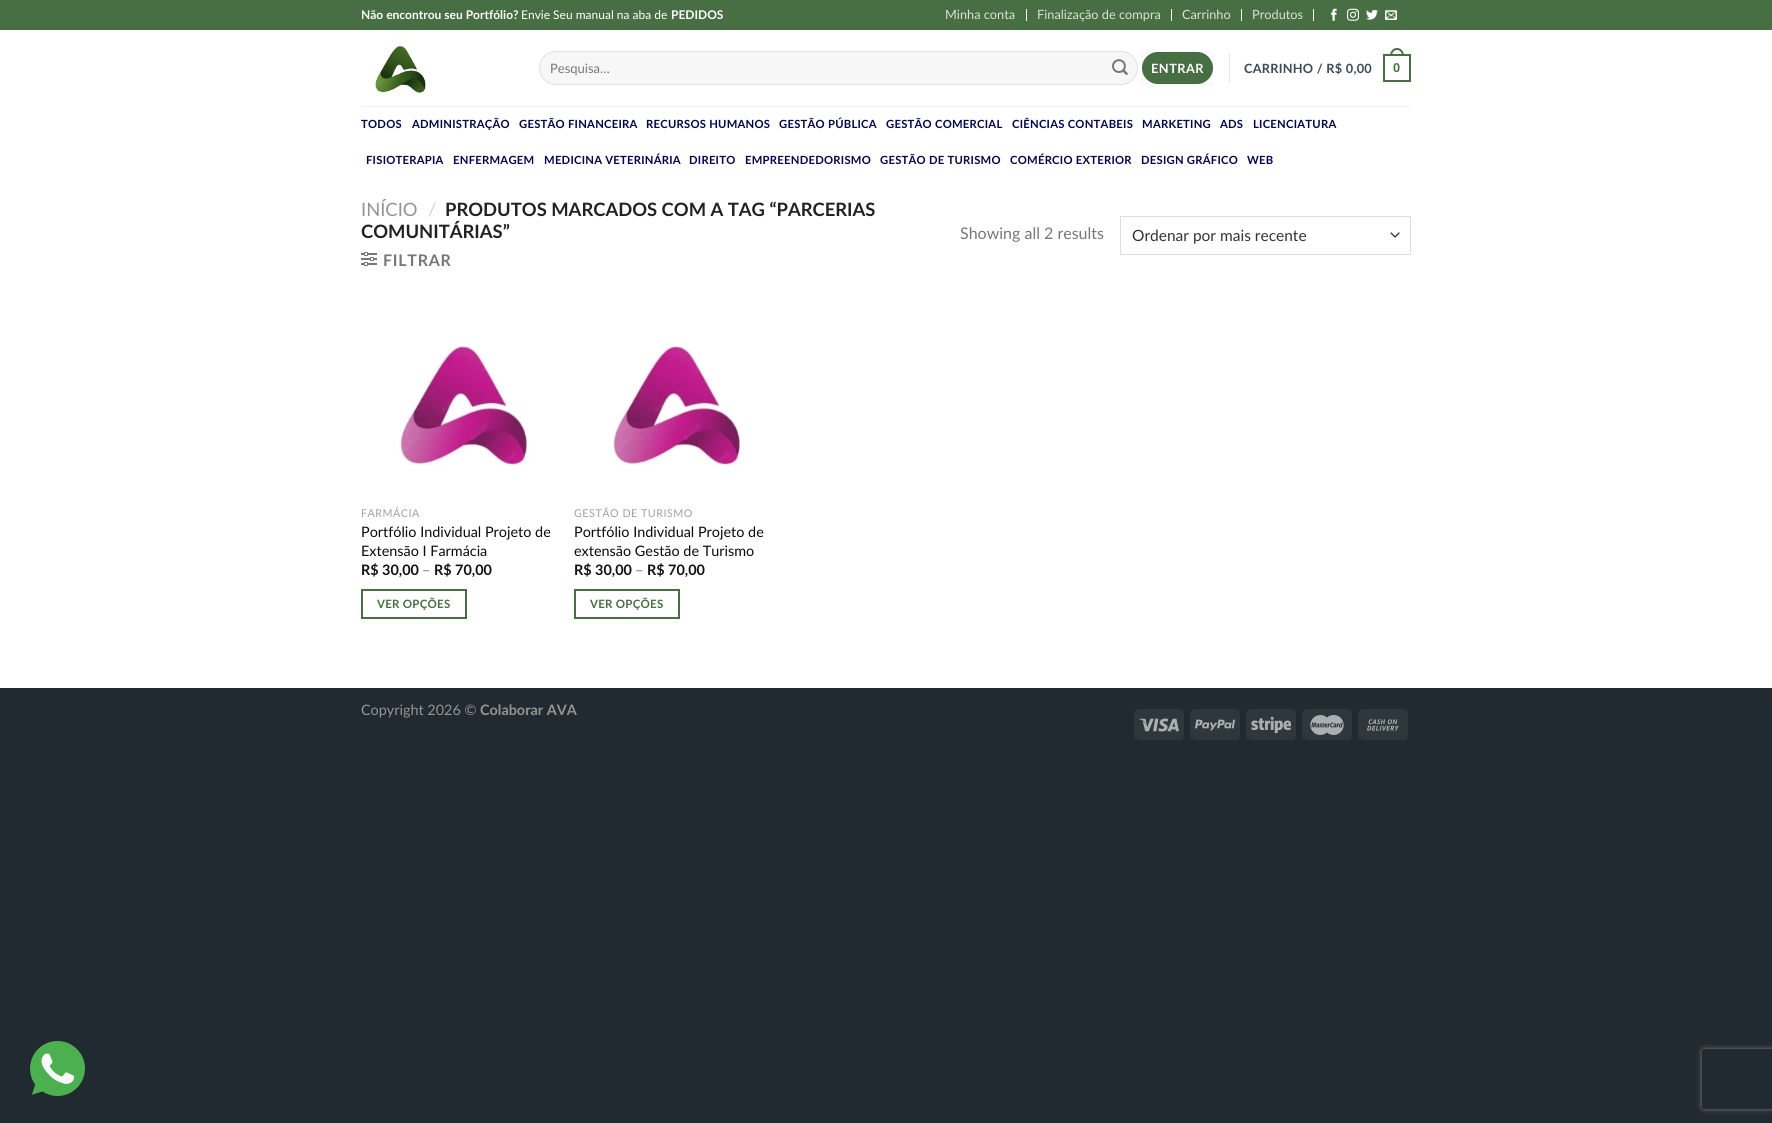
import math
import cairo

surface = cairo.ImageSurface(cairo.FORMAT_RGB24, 1772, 1123)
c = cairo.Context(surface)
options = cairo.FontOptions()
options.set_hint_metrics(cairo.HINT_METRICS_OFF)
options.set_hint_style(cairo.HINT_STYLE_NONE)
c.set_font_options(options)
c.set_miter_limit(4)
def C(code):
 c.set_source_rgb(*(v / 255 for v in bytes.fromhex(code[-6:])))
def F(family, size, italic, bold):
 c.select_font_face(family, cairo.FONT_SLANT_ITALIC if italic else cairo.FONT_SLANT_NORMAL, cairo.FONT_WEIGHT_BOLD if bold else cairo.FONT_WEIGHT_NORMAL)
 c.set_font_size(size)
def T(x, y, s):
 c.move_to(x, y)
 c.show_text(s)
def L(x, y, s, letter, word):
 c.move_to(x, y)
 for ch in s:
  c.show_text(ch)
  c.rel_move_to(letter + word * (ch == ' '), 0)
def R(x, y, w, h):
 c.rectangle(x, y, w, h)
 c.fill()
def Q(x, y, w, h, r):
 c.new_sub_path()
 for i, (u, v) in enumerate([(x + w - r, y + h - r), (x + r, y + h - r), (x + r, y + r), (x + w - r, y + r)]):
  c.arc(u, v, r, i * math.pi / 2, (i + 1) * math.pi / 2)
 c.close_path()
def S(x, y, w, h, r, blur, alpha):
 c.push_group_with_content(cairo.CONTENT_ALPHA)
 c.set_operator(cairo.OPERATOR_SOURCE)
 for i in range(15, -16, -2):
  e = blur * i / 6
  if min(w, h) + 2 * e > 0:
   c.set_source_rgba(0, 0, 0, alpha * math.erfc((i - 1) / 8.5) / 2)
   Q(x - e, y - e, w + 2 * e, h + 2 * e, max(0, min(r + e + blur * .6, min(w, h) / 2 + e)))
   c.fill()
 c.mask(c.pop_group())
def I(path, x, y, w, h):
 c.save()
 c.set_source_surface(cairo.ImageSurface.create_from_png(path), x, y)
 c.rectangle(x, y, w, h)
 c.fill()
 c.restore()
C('212a30')
c.paint()
C('ffffff')
R(0,30,1772,658)
C('486e43')
R(0,0,1772,30)
F('Lato',12,0,1)
C('ffffff')
T(361,19,'Não encontrou seu Portfólio?')
F('Lato',12,0,0)
T(521,19,'Envie Seu manual na aba de')
F('Lato',12,0,1)
T(671,19,'PEDIDOS')
R(1026,9,1,12)
F('Lato',12.75,0,0)
C('dae2d9')
T(945,19,'Minha conta')
C('ffffff')
R(1171,9,1,12)
C('dae2d9')
T(1037,19,'Finalização de compra')
C('ffffff')
R(1241,9,1,12)
C('dae2d9')
T(1182,19,'Carrinho')
C('ffffff')
R(1313,9,1,12)
C('dae2d9')
T(1252,19,'Produtos')
I('1.png',1331,8,6,13)
I('2.png',1347,8,12,13)
I('3.png',1366,9,12,11)
I('4.png',1385,10,12,10)
I('5.png',375,46,51,47)
C('f7f7f7')
Q(539,51,599,34,17)
c.fill()
Q(539.5,51.5,598,33,16.5)
c.set_source_rgba(0,0,0,0.09)
c.set_line_width(1)
c.stroke()
F('Lato',13,0,0)
C('777777')
T(550,73,'Pesquisa…')
I('6.png',1112,59,16,16)
C('486e43')
Q(1142,52,71,32,16)
c.fill()
c.rectangle(1142.5,52.5,70,31)
c.set_source_rgba(0,0,0,0.05)
c.stroke()
F('Lato',12.75,0,1)
C('ffffff')
L(1151,73,'ENTRAR',.5,0)
C('e6e6e6')
R(1229,53,1,30)
C('3b4b53')
L(1244,73,'CARRINHO / R$ 0,00',.25,0)
c.rectangle(1384,55,26,26)
C('486e43')
c.set_line_width(2)
c.stroke()
c.set_fill_rule(cairo.FILL_RULE_EVEN_ODD)
c.new_path()
c.move_to(1397,48)
c.curve_to(1401.5,48,1404,52,1404,56)
c.line_to(1390,56)
c.curve_to(1390,52,1392.5,48,1397,48)
c.close_path()
c.move_to(1397,50)
c.curve_to(1400.5,50,1402,53,1402,56)
c.line_to(1392,56)
c.curve_to(1392,53,1393.5,50,1397,50)
c.close_path()
c.fill()
F('Liberation Sans',12.75,0,1)
L(1393,72,'0',.25,0)
C('f1f1f1')
R(361,106,1050,1)
F('Lato',11.25,0,1)
C('02054a')
L(361,128,'TODOS',.25,0)
L(412,128,'ADMINISTRAÇÃO',.25,0)
L(519,128,'GESTÃO FINANCEIRA',.25,0)
L(646,128,'RECURSOS HUMANOS',.25,0)
L(779,128,'GESTÃO PÚBLICA',.25,0)
L(886,128,'GESTÃO COMERCIAL',.25,0)
L(1012,128,'CIÊNCIAS CONTABEIS',.25,0)
L(1142,128,'MARKETING',.25,0)
L(1220,128,'ADS',.25,0)
L(1253,128,'LICENCIATURA',.25,0)
L(366,164,'FISIOTERAPIA',.25,0)
L(453,164,'ENFERMAGEM',.25,0)
L(544,164,'MEDICINA VETERINÁRIA',.25,0)
L(689,164,'DIREITO',.25,0)
L(745,164,'EMPREENDEDORISMO',.25,0)
L(880,164,'GESTÃO DE TURISMO',.25,0)
L(1010,164,'COMÉRCIO EXTERIOR',.25,0)
L(1141,164,'DESIGN GRÁFICO',.25,0)
L(1247,164,'WEB',.25,0)
F('Lato',18.4,0,0)
C('949494')
T(361,216,'INÍCIO')
F('Lato Light',18.4,0,0)
C('b2b2b2')
T(428,216,'/')
F('Lato',18.4,0,1)
C('222222')
T(445,216,'PRODUTOS MARCADOS COM A TAG “PARCERIAS')
T(361,238,'COMUNITÁRIAS”')
I('7.png',361,252,16,14)
F('Lato',16,0,1)
C('777777')
L(383,266,'FILTRAR',.75,0)
F('Lato',16,0,0)
T(960,239,'Showing all 2 results')
c.new_path()
c.move_to(1391,233)
c.line_to(1395,237)
c.line_to(1399,233)
C('333333')
c.set_line_width(1.3)
c.set_line_cap(cairo.LINE_CAP_ROUND)
c.set_line_join(cairo.LINE_JOIN_ROUND)
c.stroke()
c.rectangle(1120.5,216.5,290,38)
C('dddddd')
c.set_line_width(1)
c.set_line_cap(cairo.LINE_CAP_BUTT)
c.set_line_join(cairo.LINE_JOIN_MITER)
c.stroke()
F('Lato',15.5,0,0)
C('333333')
T(1132,241,'Ordenar por mais recente')
I('8.png',399,346,130,120)
F('Lato',10.75,0,0)
C('a0a0a0')
L(361,517,'FARMÁCIA',.5,0)
F('Lato',14.4,0,0)
C('0a0a0a')
T(361,537,'Portfólio Individual Projeto de')
T(361,556,'Extensão I Farmácia')
F('Lato',14.4,0,1)
C('111111')
T(361,575,'R$ 30,00')
F('Lato',14.4,0,0)
C('777777')
T(422,575,'–')
F('Lato',14.4,0,1)
C('111111')
T(434,575,'R$ 70,00')
c.rectangle(362,590,104,28)
C('486e43')
c.set_line_width(2)
c.stroke()
F('Lato',11.5,0,1)
L(377,608,'VER OPÇÕES',.25,0)
I('8.png',612,346,130,120)
F('Lato',10.75,0,0)
C('a0a0a0')
L(574,517,'GESTÃO DE TURISMO',.5,0)
F('Lato',14.4,0,0)
C('0a0a0a')
T(574,537,'Portfólio Individual Projeto de')
T(574,556,'extensão Gestão de Turismo')
F('Lato',14.4,0,1)
C('111111')
T(574,575,'R$ 30,00')
F('Lato',14.4,0,0)
C('777777')
T(635,575,'–')
F('Lato',14.4,0,1)
C('111111')
T(647,575,'R$ 70,00')
c.rectangle(575,590,104,28)
C('486e43')
c.stroke()
F('Lato',11.5,0,1)
L(590,608,'VER OPÇÕES',.25,0)
F('Lato',14.4,0,0)
C('949494')
T(361,715,'Copyright 2026 ©')
F('Lato',14.4,0,1)
T(480,715,'Colaborar AVA')
C('2e373c')
Q(1134,709,50,31,5)
c.fill()
I('9.png',1139,718,40,14)
Q(1190,709,50,31,5)
c.fill()
I('10.png',1195,719,40,12)
Q(1246,709,50,31,5)
c.fill()
I('11.png',1251,716,40,18)
Q(1302,709,50,31,5)
c.fill()
I('12.png',1310,715,34,20)
Q(1358,709,50,31,5)
c.fill()
I('13.png',1367,719,32,12)
I('14.png',30,1041,55,55)
c.save()
c.new_path()
c.move_to(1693,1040)
c.line_to(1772,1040)
c.line_to(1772,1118)
c.line_to(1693,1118)
c.close_path()
c.move_to(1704,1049)
c.line_to(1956,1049)
c.curve_to(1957,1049,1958,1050,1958,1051)
c.line_to(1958,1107)
c.curve_to(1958,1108,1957,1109,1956,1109)
c.line_to(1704,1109)
c.curve_to(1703,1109,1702,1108,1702,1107)
c.line_to(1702,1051)
c.curve_to(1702,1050,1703,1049,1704,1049)
c.close_path()
c.clip()
C('808080')
S(1702,1049,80,60,2,2.5,1)
c.restore()
surface.write_to_png('o.png')
